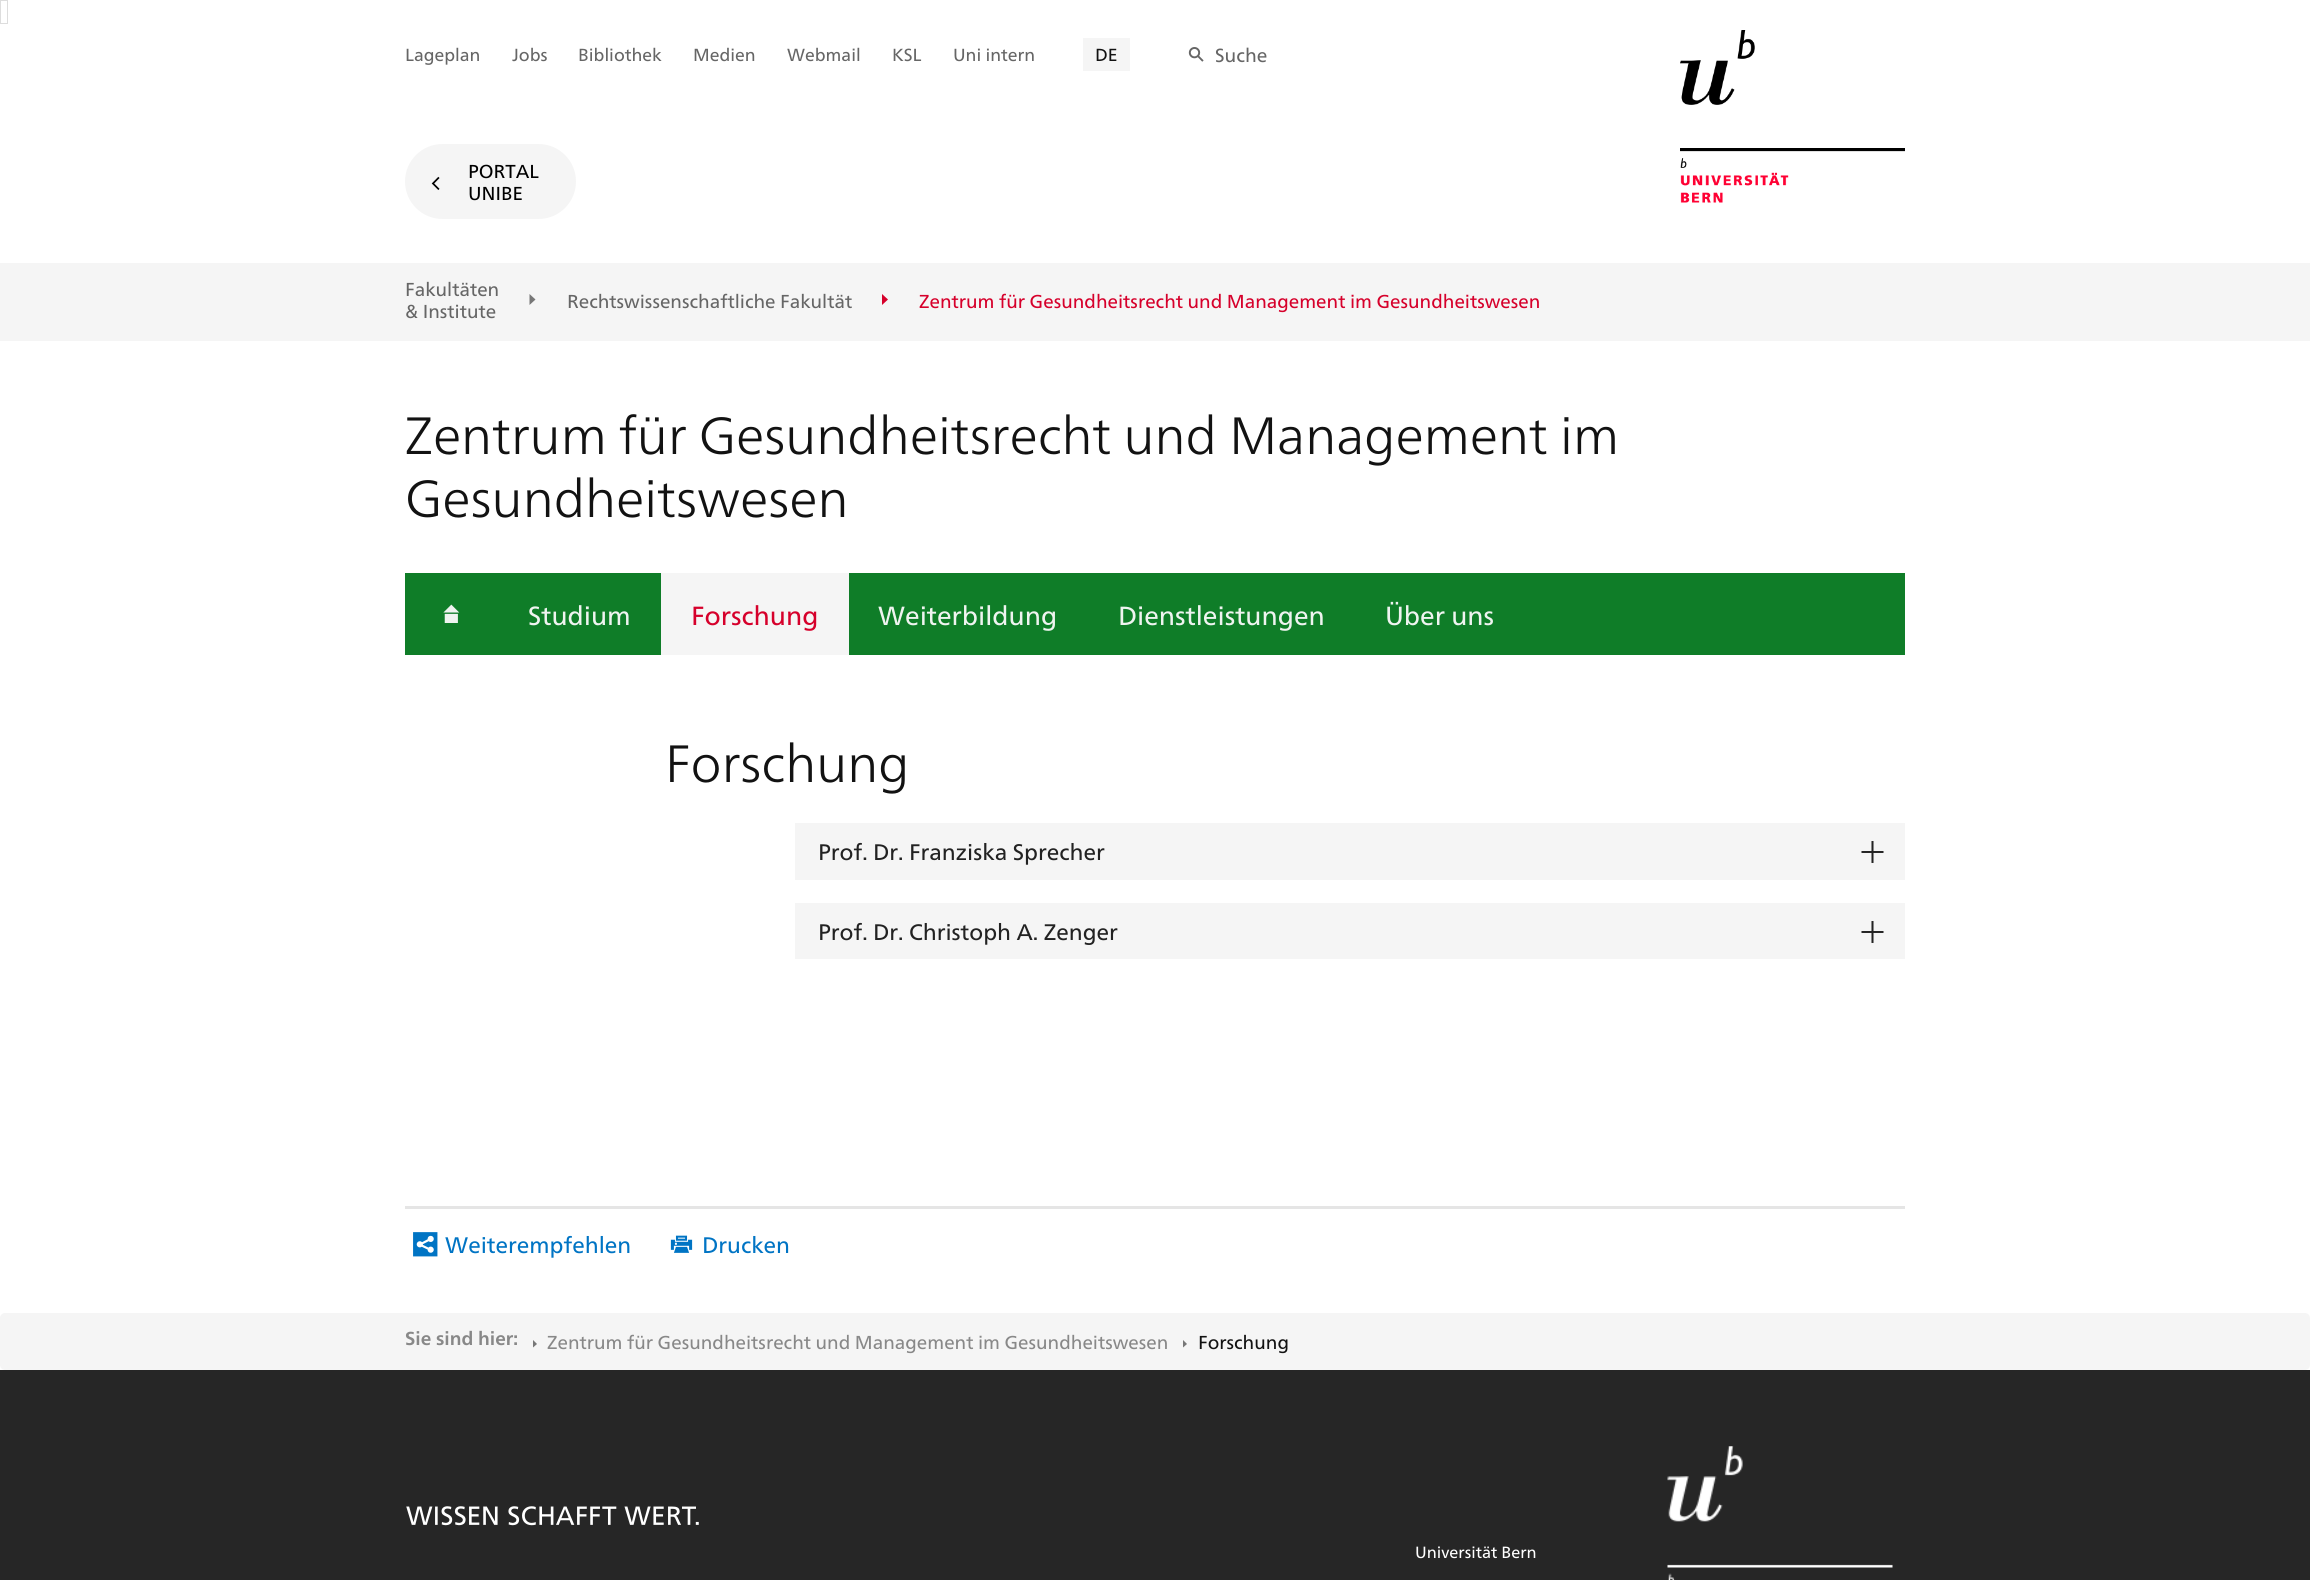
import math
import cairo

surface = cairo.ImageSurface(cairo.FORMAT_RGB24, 2310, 1580)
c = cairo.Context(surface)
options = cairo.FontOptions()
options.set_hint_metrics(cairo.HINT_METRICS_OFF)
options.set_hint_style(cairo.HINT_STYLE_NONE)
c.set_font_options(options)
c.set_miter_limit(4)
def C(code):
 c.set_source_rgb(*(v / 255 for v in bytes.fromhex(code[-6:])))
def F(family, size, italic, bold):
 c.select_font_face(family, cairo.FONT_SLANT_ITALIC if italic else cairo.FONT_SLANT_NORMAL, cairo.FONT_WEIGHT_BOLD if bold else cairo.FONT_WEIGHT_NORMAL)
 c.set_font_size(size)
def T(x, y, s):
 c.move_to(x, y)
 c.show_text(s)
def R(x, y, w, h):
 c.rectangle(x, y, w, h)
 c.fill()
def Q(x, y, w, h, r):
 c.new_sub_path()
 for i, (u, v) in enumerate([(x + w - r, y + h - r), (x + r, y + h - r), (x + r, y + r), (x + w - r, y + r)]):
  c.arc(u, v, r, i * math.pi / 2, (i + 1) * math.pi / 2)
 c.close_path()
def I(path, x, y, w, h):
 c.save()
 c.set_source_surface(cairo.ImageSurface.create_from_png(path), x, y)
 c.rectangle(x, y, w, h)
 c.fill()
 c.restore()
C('ffffff')
c.paint()
c.rectangle(.5,.5,7,23)
C('dddddd')
c.set_line_width(1)
c.stroke()
C('262626')
R(0,1370,2310,210)
F('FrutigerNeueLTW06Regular',17.5,0,0)
C('666666')
T(405,61,'Lageplan')
T(512,61,'Jobs')
T(578,61,'Bibliothek')
T(693,61,'Medien')
T(787,61,'Webmail')
T(892,61,'KSL')
T(953,61,'Uni intern')
C('f5f5f5')
R(1083,38,47,33)
C('121212')
T(1095,61,'DE')
I('1.png',1188,47,16,15)
F('FrutigerNeueLTW06Regular',19,0,0)
C('666666')
T(1215,62,'Suche')
I('2.png',406,1506,293,20)
F('FrutigerNeueLTW06Regular',16.25,0,0)
C('ffffff')
T(1415,1558,'Universität Bern')
I('3.png',1667,1446,226,134)
I('4.png',1680,30,225,173)
C('f5f5f5')
Q(405,144,171,75,37.5)
c.fill()
F('FrutigerNeueLTW06Regular',18.75,0,0)
C('000000')
T(468,178,'PORTAL')
I('5.png',431,176,9,14)
T(468,200,'UNIBE')
C('f5f5f5')
R(0,263,2310,78)
C('666666')
T(405,296,'Fakultäten')
T(405,318,'& Institute')
C('777777')
c.new_path()
c.move_to(529.5,305)
c.line_to(535.5,299.5)
c.line_to(529.5,294)
c.close_path()
c.fill()
C('666666')
T(567,308,'Rechtswissenschaftliche Fakultät')
C('d6002b')
c.new_path()
c.move_to(882,305)
c.line_to(888,299.5)
c.line_to(882,294)
c.close_path()
c.fill()
T(919,308,'Zentrum für Gesundheitsrecht und Management im Gesundheitswesen')
F('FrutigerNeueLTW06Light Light',52.4,0,0)
C('121212')
T(405,454,'Zentrum für Gesundheitsrecht und Management im')
T(405,517,'Gesundheitswesen')
C('0f7d28')
R(405,573,1500,82)
I('6.png',443,604,17,19)
F('FrutigerNeueLTW06Regular',26.25,0,0)
C('eff4f0')
T(528,625,'Studium')
C('f5f5f5')
R(661,573,188,82)
C('d6002b')
T(691,625,'Forschung')
C('eff4f0')
T(878,625,'Weiterbildung')
T(1118,625,'Dienstleistungen')
T(1385,625,'Über uns')
F('FrutigerNeueLTW06Light Light',52.4,0,0)
C('121212')
T(665,782,'Forschung')
C('f5f5f5')
R(795,823,1110,57)
F('FrutigerNeueLTW06Regular',22.5,0,0)
C('222222')
T(818,860,'Prof. Dr. Franziska Sprecher')
I('7.png',1861,841,23,22)
C('f5f5f5')
R(795,903,1110,56)
C('222222')
T(818,940,'Prof. Dr. Christoph A. Zenger')
I('7.png',1861,921,23,22)
C('e5e5e5')
R(405,1206,1500,3)
I('8.png',413,1232,25,25)
C('0074c4')
T(445,1253,'Weiterempfehlen')
I('9.png',670,1235,23,18)
T(702,1253,'Drucken')
C('f5f5f5')
Q(0,1313,2310,57,5)
c.fill()
F('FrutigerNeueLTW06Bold',18.75,0,1)
C('888888')
T(405,1345,'Sie sind hier:')
C('777777')
c.new_path()
c.move_to(533,1347.5)
c.line_to(537,1344)
c.line_to(533,1340)
c.close_path()
c.fill()
F('FrutigerNeueLTW06Regular',18.75,0,0)
C('888888')
T(547,1349,'Zentrum für Gesundheitsrecht und Management im Gesundheitswesen')
C('777777')
c.new_path()
c.move_to(1183,1347.5)
c.line_to(1187,1344)
c.line_to(1183,1340)
c.close_path()
c.fill()
C('121212')
T(1198,1349,'Forschung')
surface.write_to_png('o.png')
